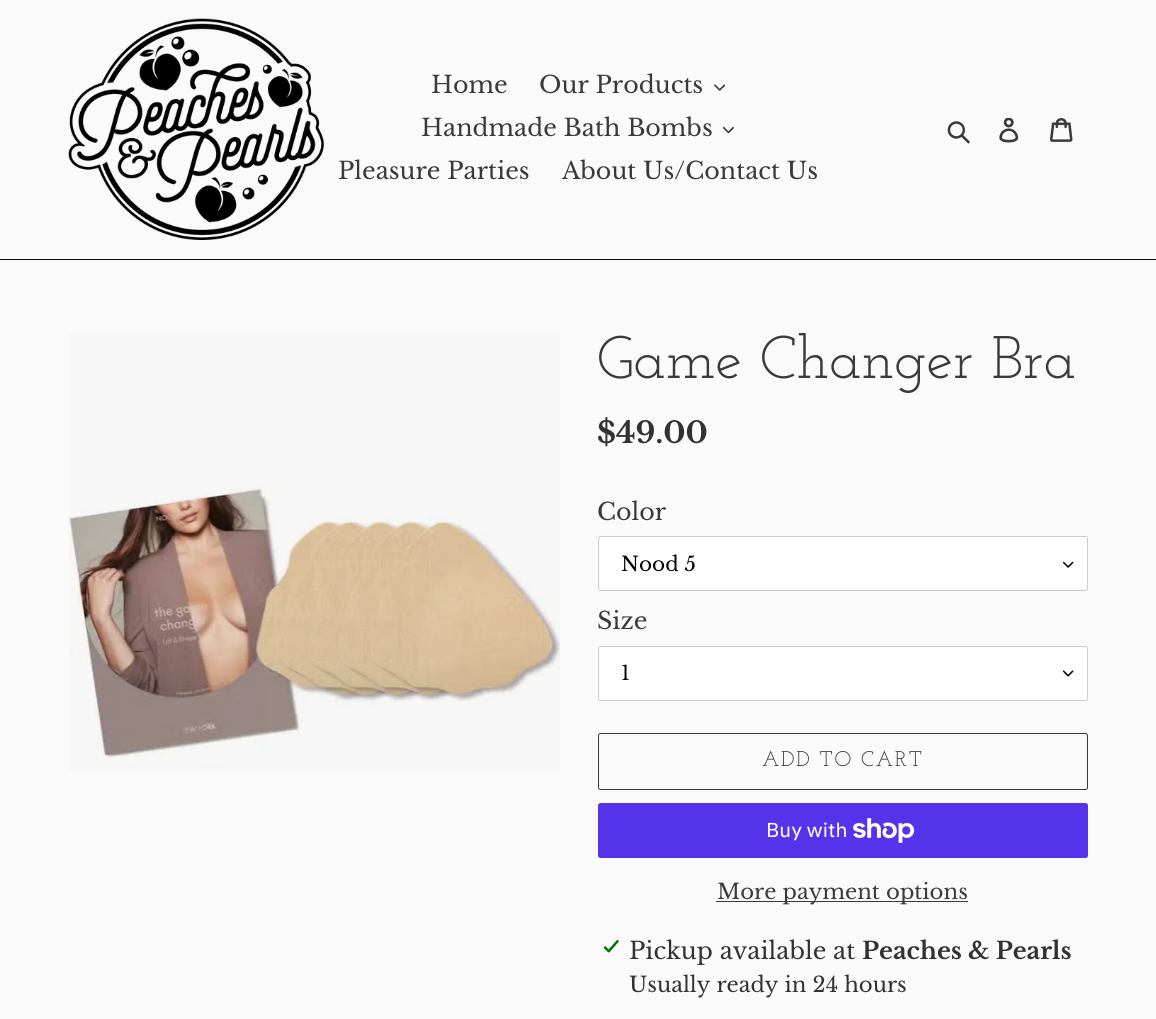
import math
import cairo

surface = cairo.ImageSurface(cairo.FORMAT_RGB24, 1156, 1019)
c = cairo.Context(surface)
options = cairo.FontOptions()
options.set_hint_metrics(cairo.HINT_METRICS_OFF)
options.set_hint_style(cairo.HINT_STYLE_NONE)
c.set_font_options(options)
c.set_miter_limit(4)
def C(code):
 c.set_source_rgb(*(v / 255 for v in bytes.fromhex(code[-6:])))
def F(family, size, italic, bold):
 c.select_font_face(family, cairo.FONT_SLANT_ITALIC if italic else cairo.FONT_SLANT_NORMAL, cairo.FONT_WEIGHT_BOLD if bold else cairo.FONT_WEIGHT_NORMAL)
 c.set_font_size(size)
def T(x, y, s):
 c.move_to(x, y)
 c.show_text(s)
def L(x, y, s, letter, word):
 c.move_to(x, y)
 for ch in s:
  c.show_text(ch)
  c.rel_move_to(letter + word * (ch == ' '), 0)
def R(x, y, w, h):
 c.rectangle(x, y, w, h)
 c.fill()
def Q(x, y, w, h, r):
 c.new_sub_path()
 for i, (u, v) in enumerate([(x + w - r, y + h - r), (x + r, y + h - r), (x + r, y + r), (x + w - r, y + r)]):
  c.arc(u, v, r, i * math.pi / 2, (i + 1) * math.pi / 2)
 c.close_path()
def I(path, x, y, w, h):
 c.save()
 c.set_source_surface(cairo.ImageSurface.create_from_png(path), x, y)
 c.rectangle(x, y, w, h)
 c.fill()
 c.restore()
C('fafafa')
c.paint()
C('0e0d19')
R(0,259,1156,1)
I('1.png',68,18,256,222)
F('Libre Baskerville',23.75,0,0)
C('3a3a3a')
T(431,93,'Home')
T(539,93,'Our Products')
I('2.png',714,84,11,7)
T(421,136,'Handmade Bath Bombs')
I('3.png',723,126,11,8)
T(338,179,'Pleasure Parties')
T(562,179,'About Us/Contact Us')
I('4.png',947,121,23,23)
I('5.png',999,118,20,25)
I('6.png',1050,118,23,24)
I('7.png',69,332,491,440)
F('Josefin Slab',60,0,0)
T(597,378,'Game Changer Bra')
F('Libre Baskerville',29.5,0,1)
C('333232')
T(597,443,'$49.00')
F('Libre Baskerville',23.75,0,0)
C('3a3a3a')
T(597,520,'Color')
C('ffffff')
Q(598,536,490,55,2.5)
c.fill()
I('8.png',1063,561,11,7)
Q(598.5,536.5,489,54,2)
C('cccccc')
c.set_line_width(1)
c.stroke()
F('Libre Baskerville',20,0,0)
C('000000')
T(621,571,'Nood 5')
F('Libre Baskerville',23.75,0,0)
C('3a3a3a')
T(597,629,'Size')
C('ffffff')
Q(598,646,490,55,2.5)
c.fill()
I('9.png',1063,670,11,7)
Q(598.5,646.5,489,54,2)
C('cccccc')
c.stroke()
F('Libre Baskerville',20,0,0)
C('000000')
T(621,680,'1')
Q(598.5,733.5,489,56,2)
C('3a3a3a')
c.stroke()
F('Josefin Slab',21.25,0,0)
L(762,766,'ADD TO CART',1.75,0)
C('5433eb')
Q(598,803,490,55,2.5)
c.fill()
F('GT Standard',20,0,0)
C('ffffff')
T(766,837,'Buy with')
I('10.png',853,818,62,25)
C('3a3a3a')
R(716,901,252,1)
F('Libre Baskerville',21.25,0,0)
T(717,899,'More payment options')
I('11.png',604,940,15,13)
F('Libre Baskerville',23.75,0,0)
C('333232')
T(629,959,'Pickup available at')
F('Libre Baskerville',23.75,0,1)
T(862,959,'Peaches & Pearls')
F('Libre Baskerville',21.25,0,0)
T(629,992,'Usually ready in 24 hours')
surface.write_to_png('o.png')
